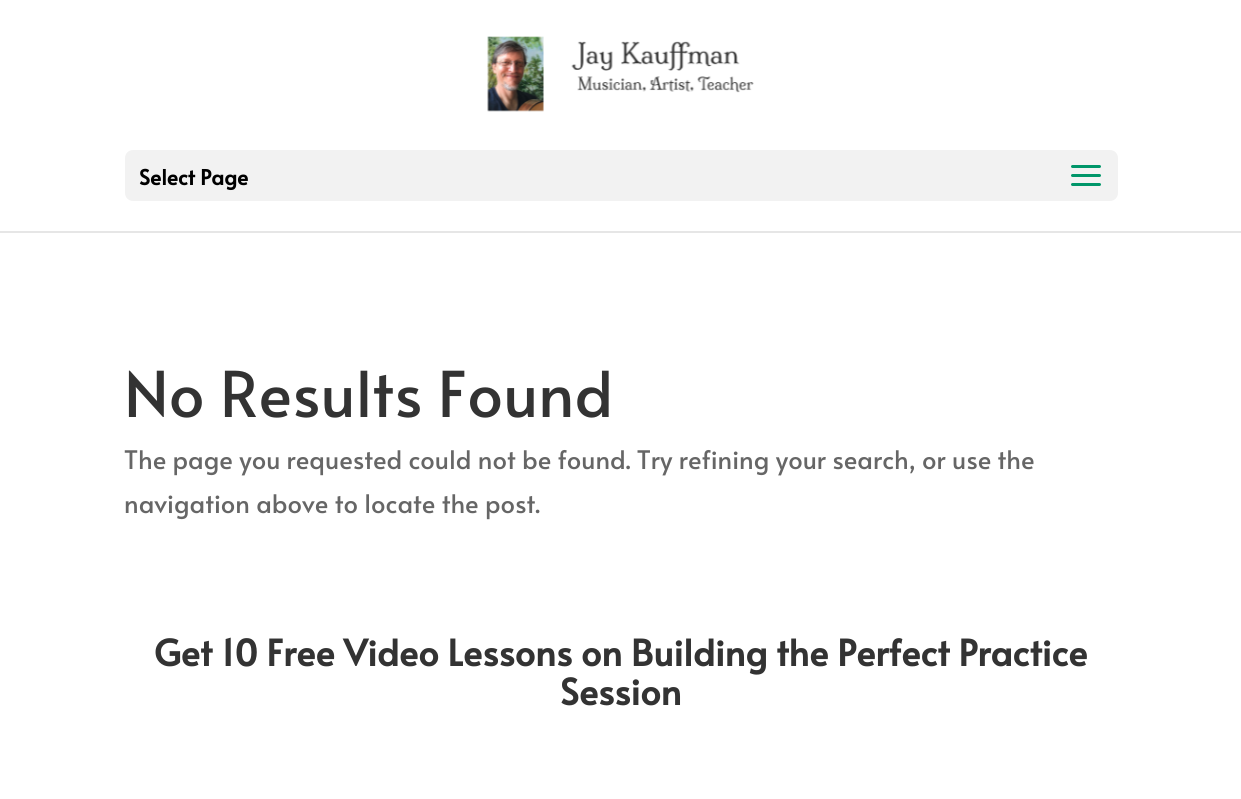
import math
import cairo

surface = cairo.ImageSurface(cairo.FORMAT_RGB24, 1241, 799)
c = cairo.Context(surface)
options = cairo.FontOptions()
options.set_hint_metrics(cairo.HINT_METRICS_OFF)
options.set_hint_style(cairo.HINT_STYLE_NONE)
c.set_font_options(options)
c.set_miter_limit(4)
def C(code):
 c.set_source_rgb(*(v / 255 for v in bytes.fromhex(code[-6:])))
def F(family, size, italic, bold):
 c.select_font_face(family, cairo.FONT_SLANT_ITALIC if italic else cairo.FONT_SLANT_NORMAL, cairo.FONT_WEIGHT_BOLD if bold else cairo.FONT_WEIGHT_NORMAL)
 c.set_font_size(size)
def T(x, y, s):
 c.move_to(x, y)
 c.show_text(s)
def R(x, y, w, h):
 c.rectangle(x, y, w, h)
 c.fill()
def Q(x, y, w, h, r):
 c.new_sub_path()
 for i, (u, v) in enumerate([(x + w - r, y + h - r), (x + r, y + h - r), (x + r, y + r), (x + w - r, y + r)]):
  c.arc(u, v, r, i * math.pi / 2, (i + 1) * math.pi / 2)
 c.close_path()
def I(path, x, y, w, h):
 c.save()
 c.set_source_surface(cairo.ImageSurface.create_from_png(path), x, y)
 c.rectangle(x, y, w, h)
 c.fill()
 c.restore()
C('ffffff')
c.paint()
C('e6e6e6')
R(0,231,1241,2)
I('1.png',487,36,267,76)
C('f2f2f2')
Q(125,150,993,51,8)
c.fill()
F('Alata',21,0,1)
C('000000')
T(139,185,'Select Page')
I('2.png',1071,165,30,21)
F('Alata',63,0,0)
C('333333')
T(124,417,'No Results Found')
F('Alata',25.5,0,0)
C('666666')
T(124,469,'The page you requested could not be found. Try refining your search, or use the')
T(124,513,'navigation above to locate the post.')
F('Alata',36,0,1)
C('333333')
T(154,666,'Get 10 Free Video Lessons on Building the Perfect Practice')
T(560,705,'Session')
surface.write_to_png('o.png')
